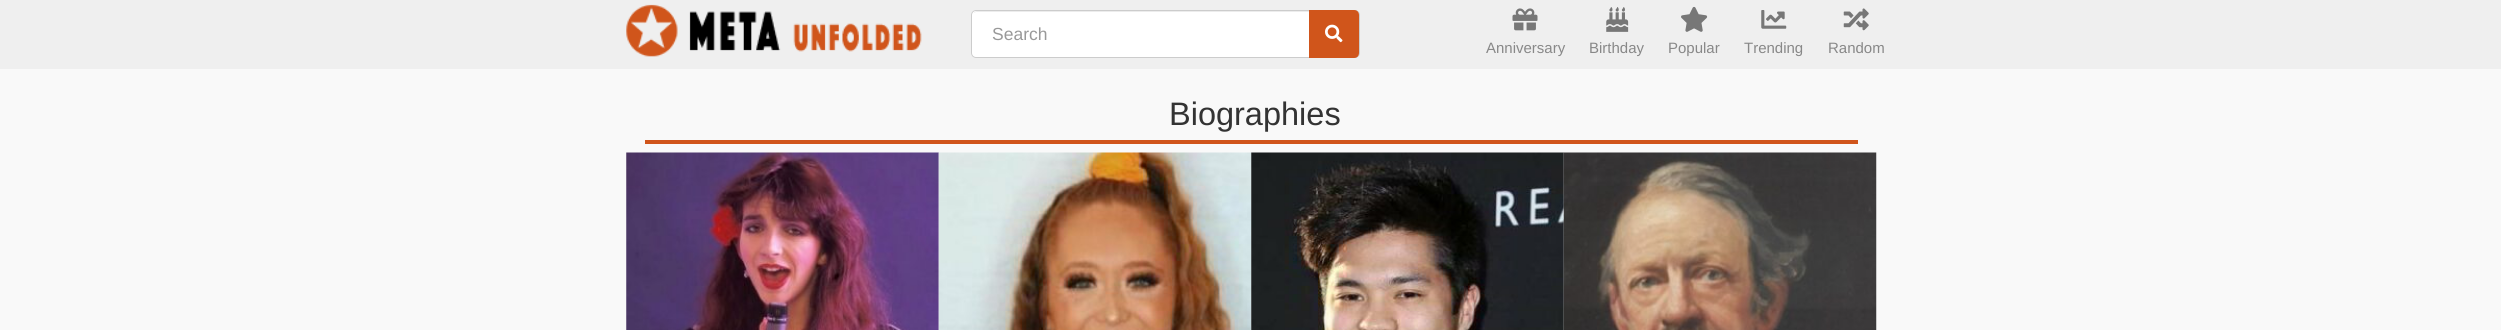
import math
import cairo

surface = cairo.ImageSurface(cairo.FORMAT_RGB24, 2501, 330)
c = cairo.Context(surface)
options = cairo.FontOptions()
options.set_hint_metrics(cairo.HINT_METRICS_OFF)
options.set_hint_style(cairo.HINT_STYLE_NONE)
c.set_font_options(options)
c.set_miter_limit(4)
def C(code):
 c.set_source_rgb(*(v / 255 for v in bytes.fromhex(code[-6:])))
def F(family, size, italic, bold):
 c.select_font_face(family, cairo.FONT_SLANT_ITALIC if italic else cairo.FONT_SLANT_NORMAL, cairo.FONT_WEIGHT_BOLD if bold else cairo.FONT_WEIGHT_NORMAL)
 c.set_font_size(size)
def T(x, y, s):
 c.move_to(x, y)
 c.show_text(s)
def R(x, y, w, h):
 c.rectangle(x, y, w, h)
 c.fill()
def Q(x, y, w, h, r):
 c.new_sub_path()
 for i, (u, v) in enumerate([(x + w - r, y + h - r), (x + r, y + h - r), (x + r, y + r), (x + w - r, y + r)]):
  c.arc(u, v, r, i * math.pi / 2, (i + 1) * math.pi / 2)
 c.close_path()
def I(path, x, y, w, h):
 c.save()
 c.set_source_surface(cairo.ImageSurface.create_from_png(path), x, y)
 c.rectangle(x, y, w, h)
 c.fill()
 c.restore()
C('f9f9f9')
c.paint()
C('efefef')
R(0,0,2501,69)
I('1.png',626,4,296,53)
C('ffffff')
Q(971,10,389,48,5)
c.fill()
C('ececec')
c.new_path()
c.move_to(976,12)
c.line_to(1355,12)
c.curve_to(1357,12,1359,14,1359,16)
c.line_to(1359,15)
c.curve_to(1359,13,1357,11,1355,11)
c.line_to(977,11)
c.curve_to(976,11,974,12,974,13)
c.close_path()
c.fill()
Q(971.5,10.5,388,47,4.5)
C('cccccc')
c.set_line_width(1)
c.stroke()
F('Liberation Sans',17.5,0,0)
C('999999')
T(992,40,'Search')
C('d0551b')
c.new_path()
c.move_to(1309,10)
c.line_to(1354,10)
c.curve_to(1357,10,1359,12,1359,15)
c.line_to(1359,53)
c.curve_to(1359,56,1357,58,1354,58)
c.line_to(1309,58)
c.close_path()
c.fill()
I('2.png',1325,24,18,19)
I('3.png',1512,8,26,23)
F('Liberation Sans',15,0,0)
C('888888')
T(1486,53,'Anniversary')
I('4.png',1606,7,23,25)
T(1589,53,'Birthday')
I('5.png',1681,6,27,26)
T(1668,53,'Popular')
I('6.png',1761,10,26,19)
T(1744,53,'Trending')
I('7.png',1843,8,26,23)
T(1828,53,'Random')
C('d0551b')
R(645,140,1213,4)
F('Liberation Sans',32.5,0,0)
C('333333')
T(1169,125,'Biographies')
I('8.png',626,152,313,178)
I('9.png',938,152,314,178)
I('10.png',1251,152,313,178)
I('11.png',1563,152,314,178)
surface.write_to_png('o.png')
